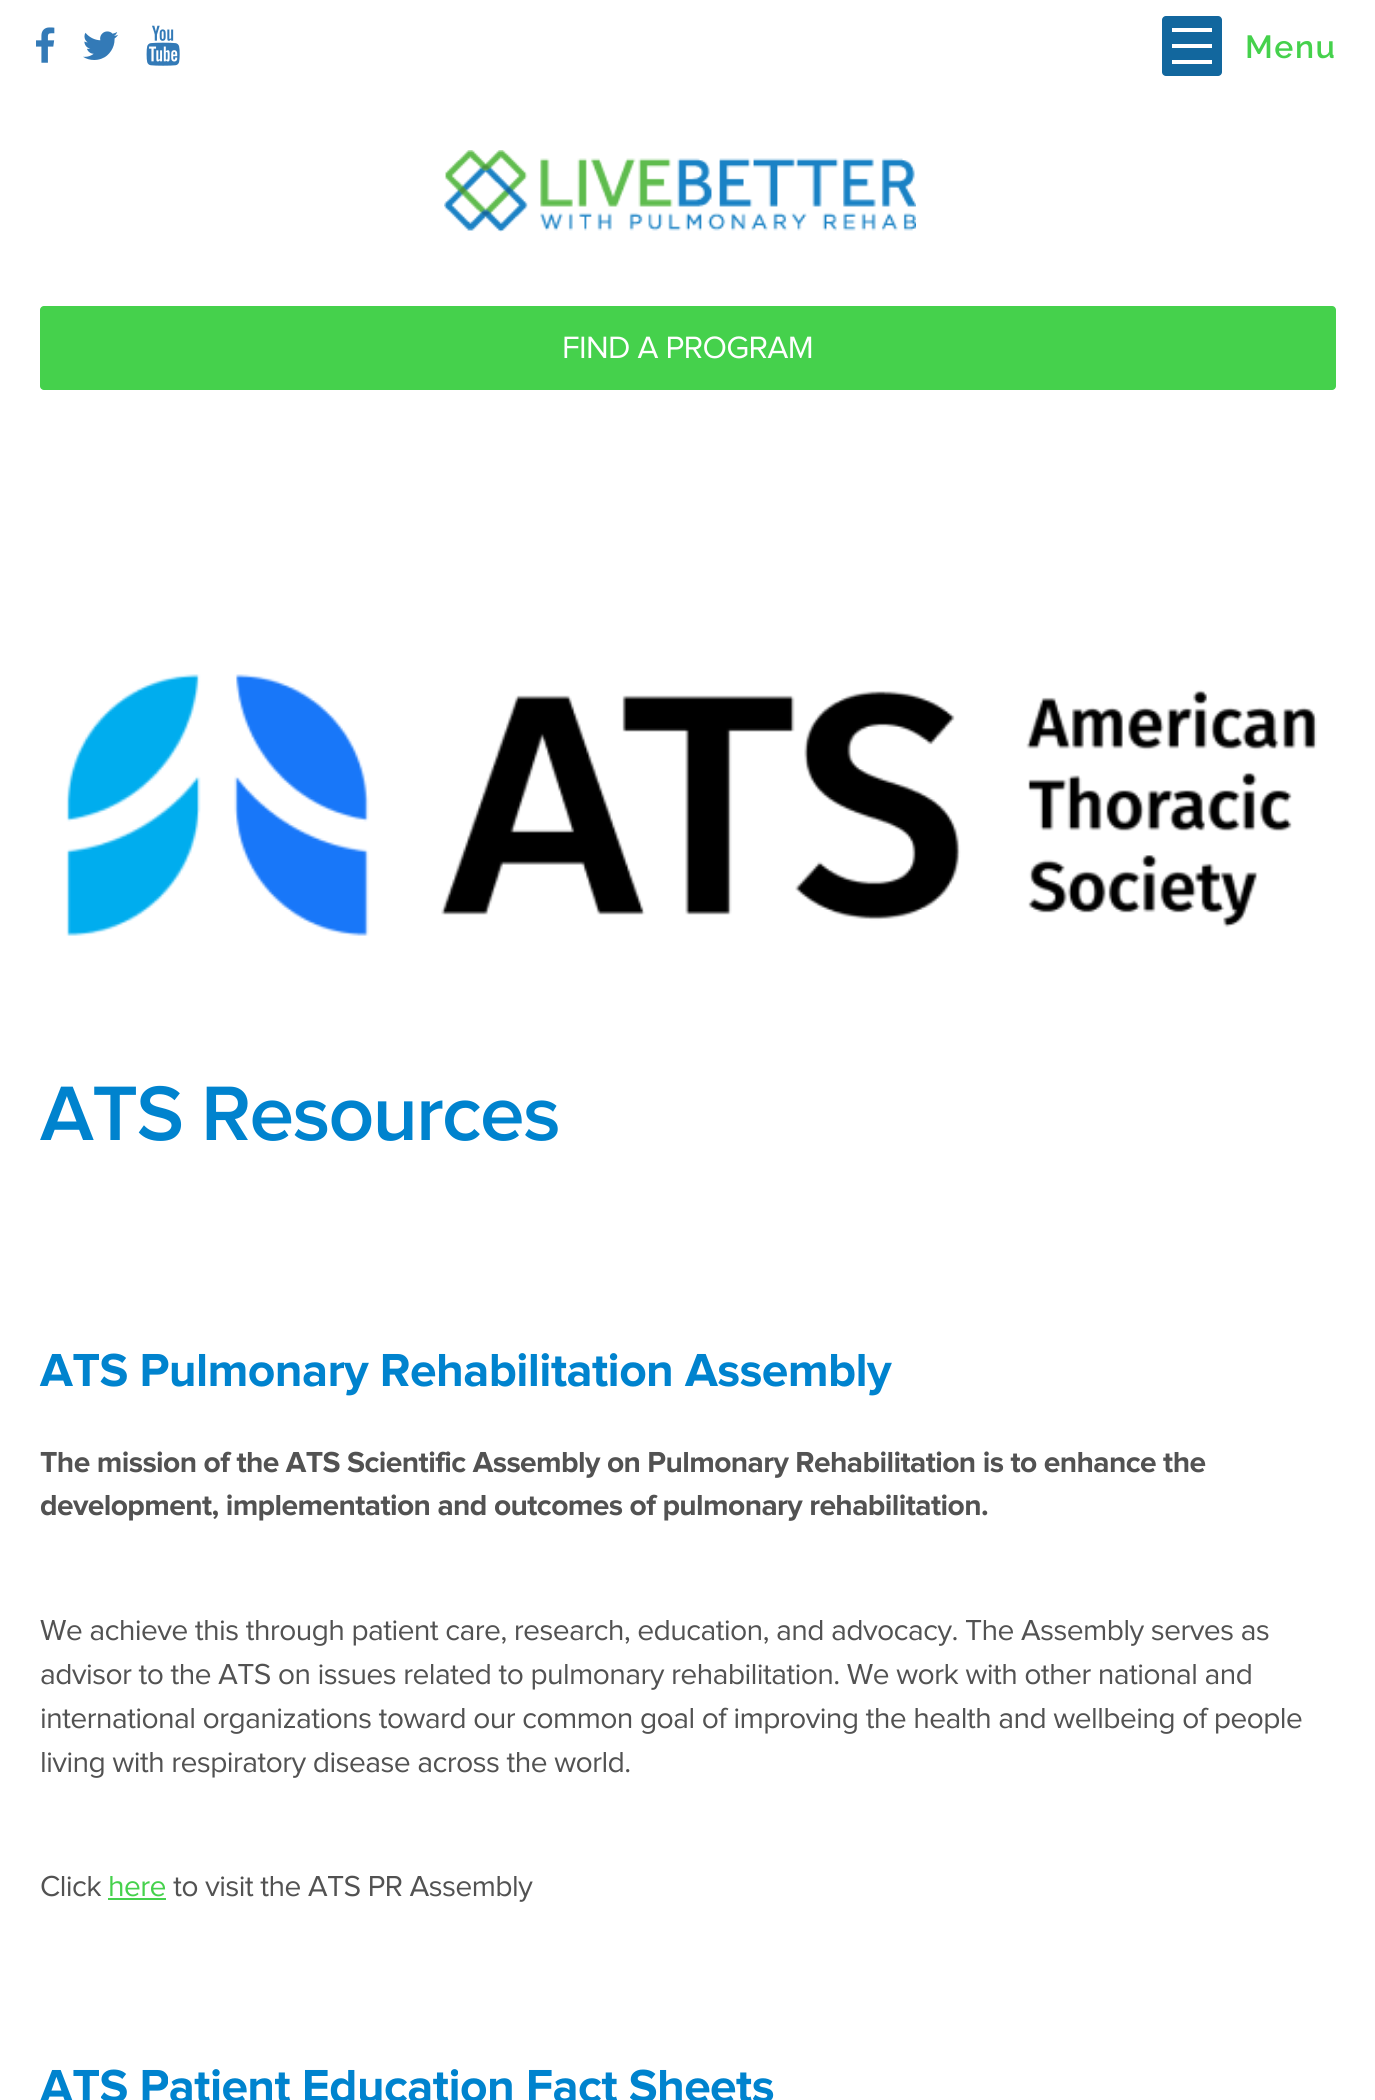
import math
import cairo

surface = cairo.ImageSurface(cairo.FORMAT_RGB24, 1375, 2100)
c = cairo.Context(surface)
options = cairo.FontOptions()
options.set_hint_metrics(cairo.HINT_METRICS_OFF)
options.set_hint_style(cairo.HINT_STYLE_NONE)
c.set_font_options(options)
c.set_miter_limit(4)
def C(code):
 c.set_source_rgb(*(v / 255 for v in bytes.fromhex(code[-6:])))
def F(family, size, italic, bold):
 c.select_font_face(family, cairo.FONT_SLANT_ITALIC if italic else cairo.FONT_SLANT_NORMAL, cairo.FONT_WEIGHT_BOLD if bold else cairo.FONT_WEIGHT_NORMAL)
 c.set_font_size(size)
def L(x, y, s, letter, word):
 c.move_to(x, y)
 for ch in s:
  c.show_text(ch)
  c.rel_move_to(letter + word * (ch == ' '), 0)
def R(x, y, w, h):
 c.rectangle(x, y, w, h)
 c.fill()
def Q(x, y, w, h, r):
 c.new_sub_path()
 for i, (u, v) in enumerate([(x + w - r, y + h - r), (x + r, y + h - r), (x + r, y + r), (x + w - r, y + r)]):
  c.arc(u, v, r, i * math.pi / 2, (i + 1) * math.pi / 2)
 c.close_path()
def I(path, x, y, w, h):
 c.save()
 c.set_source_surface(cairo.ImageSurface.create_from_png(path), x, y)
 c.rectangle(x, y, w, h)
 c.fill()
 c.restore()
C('ffffff')
c.paint()
I('1.png',36,27,19,36)
I('2.png',83,31,35,29)
I('3.png',146,25,34,41)
C('12679e')
Q(1162,16,60,60,4)
c.fill()
C('ffffff')
R(1172,28,40,4)
R(1172,44,40,4)
R(1172,60,40,4)
F('Raleway SemiBold',32,0,0)
C('45d14c')
L(1245,58,'Menu',1.5,0)
I('4.png',444,150,472,82)
Q(40,306,1296,84,4)
c.fill()
I('5.png',564,336,248,23)
I('6.png',66,674,1251,262)
F('Proxima Nova SemiBold',80,0,0)
C('0083ce')
L(40,1140,'ATS Resources',-1.75,0)
F('Proxima Nova',48,0,1)
L(40,1386,'ATS Pulmonary Rehabilitation Assembly',-.6,0)
F('Proxima Nova',30,0,1)
C('525252')
L(40,1472,'The mission of the ATS Scientific Assembly on Pulmonary Rehabilitation is to enhance the',-.6,0)
L(40,1515,'development, implementation and outcomes of pulmonary rehabilitation.',-.6,0)
I('7.png',40,1620,1229,26)
I('8.png',41,1663,1210,27)
I('9.png',41,1707,1261,27)
I('10.png',42,1752,588,26)
I('11.png',41,1875,61,22)
I('12.png',110,1876,56,21)
I('13.png',173,1875,360,27)
C('45d14c')
R(108,1898,58,2)
F('Proxima Nova',48,0,1)
C('0083ce')
L(40,2102,'ATS Patient Education Fact Sheets',-.6,0)
surface.write_to_png('o.png')
